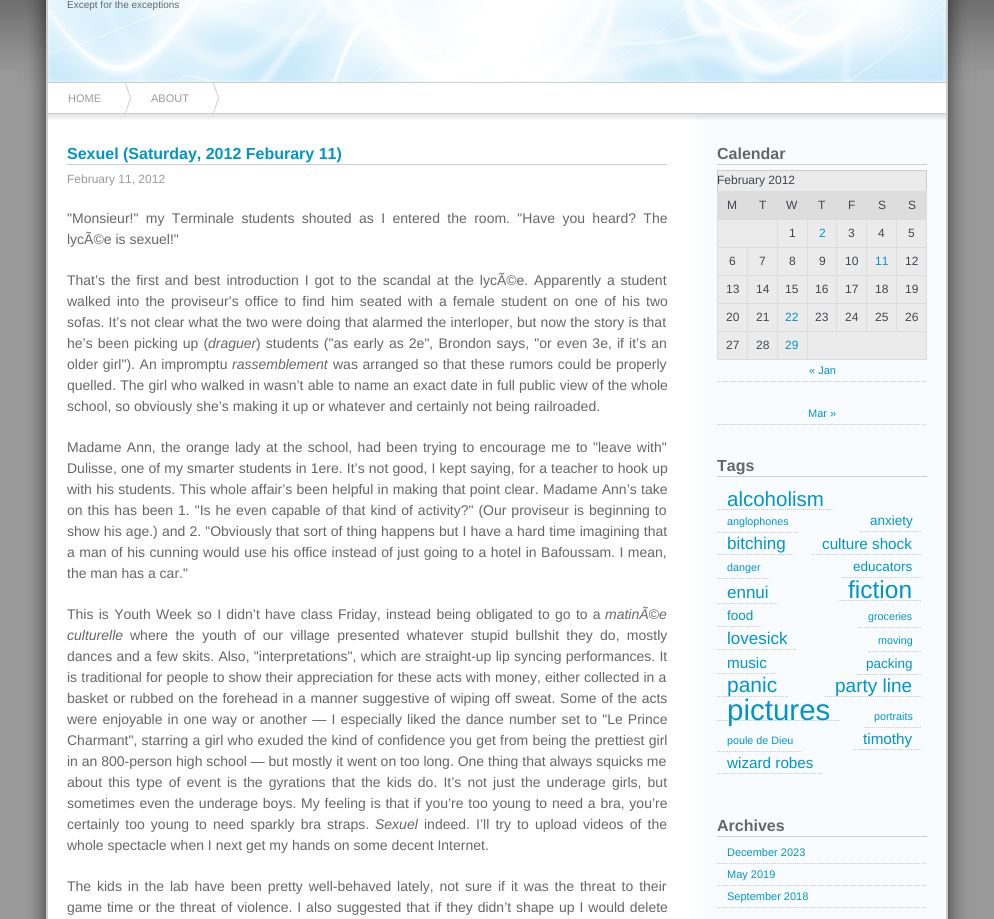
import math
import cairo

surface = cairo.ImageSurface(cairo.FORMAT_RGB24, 994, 919)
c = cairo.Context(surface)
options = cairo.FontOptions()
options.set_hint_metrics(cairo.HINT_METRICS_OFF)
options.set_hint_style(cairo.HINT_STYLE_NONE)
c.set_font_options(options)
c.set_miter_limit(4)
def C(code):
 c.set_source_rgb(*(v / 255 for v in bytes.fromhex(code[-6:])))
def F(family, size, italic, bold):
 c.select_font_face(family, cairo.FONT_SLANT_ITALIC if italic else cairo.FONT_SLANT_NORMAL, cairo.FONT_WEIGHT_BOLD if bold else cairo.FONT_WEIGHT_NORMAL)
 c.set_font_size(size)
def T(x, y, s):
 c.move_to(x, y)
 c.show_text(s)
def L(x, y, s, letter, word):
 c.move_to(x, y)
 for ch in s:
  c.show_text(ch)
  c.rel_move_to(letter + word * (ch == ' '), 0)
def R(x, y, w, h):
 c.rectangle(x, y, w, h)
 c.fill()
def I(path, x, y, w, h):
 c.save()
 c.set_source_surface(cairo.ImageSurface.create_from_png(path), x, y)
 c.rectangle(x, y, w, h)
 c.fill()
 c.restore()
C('999999')
c.paint()
I('1.png',0,0,994,70)
I('2.png',17,83,960,836)
I('3.png',17,0,960,83)
F('Liberation Sans',10,0,0)
C('666666')
T(67,8,'Except for the exceptions')
I('4.png',41,83,912,37)
I('5.png',125,83,6,30)
F('Liberation Sans',11,0,0)
C('999999')
T(68,102,'HOME')
I('5.png',213,83,6,30)
T(151,102,'ABOUT')
C('cccccc')
R(67,164,600,1)
F('Liberation Sans',16,0,1)
C('0195c5')
T(67,159,'Sexuel (Saturday, 2012 Feburary 11)')
F('Liberation Sans',12,0,0)
C('999999')
T(67,183,'February 11, 2012')
F('Liberation Sans',14,0,0)
C('666666')
L(67,223,'"Monsieur!" my Terminale students shouted as I entered the room. "Have you heard? The',0,3.5)
T(67,244,'lycÃ©e is sexuel!"')
L(67,285,'That’s the first and best introduction I got to the scandal at the lycÃ©e. Apparently a student',0,2)
L(67,306,'walked into the proviseur’s office to find him seated with a female student on one of his two',0,2.25)
L(67,327,'sofas. It’s not clear what the two were doing that alarmed the interloper, but now the story is that',0,.25)
L(67,348,'he’s been picking up (',0,1.25)
F('Liberation Sans',14,1,0)
T(208,348,'draguer')
F('Liberation Sans',14,0,0)
L(256,348,') students ("as early as 2e", Brondon says, "or even 3e, if it’s an',0,1.25)
L(67,369,'older girl"). An impromptu',0,.75)
F('Liberation Sans',14,1,0)
T(232,369,'rassemblement')
F('Liberation Sans',14,0,0)
L(333,369,'was arranged so that these rumors could be properly',0,.75)
L(67,390,'quelled. The girl who walked in wasn’t able to name an exact date in full public view of the whole',0,.25)
T(67,411,'school, so obviously she’s making it up or whatever and certainly not being railroaded.')
L(67,452,'Madame Ann, the orange lady at the school, had been trying to encourage me to "leave with"',0,1.5)
L(67,473,'Dulisse, one of my smarter students in 1ere. It’s not good, I kept saying, for a teacher to hook up',0,.25)
L(67,494,'with his students. This whole affair’s been helpful in making that point clear. Madame Ann’s take',0,.4)
L(67,515,'on this has been 1. "Is he even capable of that kind of activity?" (Our proviseur is beginning to',0,1.1)
L(67,536,'show his age.) and 2. "Obviously that sort of thing happens but I have a hard time imagining that',0,.25)
L(67,557,'a man of his cunning would use his office instead of just going to a hotel in Bafoussam. I mean,',0,.6)
T(67,578,'the man has a car."')
L(67,619,'This is Youth Week so I didn’t have class Friday, instead being obligated to go to a',0,1.4)
F('Liberation Sans',14,1,0)
T(605,619,'matinÃ©e')
T(67,640,'culturelle')
F('Liberation Sans',14,0,0)
L(130,640,'where the youth of our village presented whatever stupid bullshit they do, mostly',0,3.4)
L(67,661,'dances and a few skits. Also, "interpretations", which are straight-up lip syncing performances. It',0,.4)
L(67,682,'is traditional for people to show their appreciation for these acts with money, either collected in a',0,.25)
L(67,703,'basket or rubbed on the forehead in a manner suggestive of wiping off sweat. Some of the acts',0,.75)
L(67,724,'were enjoyable in one way or another — I especially liked the dance number set to "Le Prince',0,1.25)
L(67,745,'Charmant", starring a girl who exuded the kind of confidence you get from being the prettiest girl',0,.4)
T(67,766,'in an 800-person high school — but mostly it went on too long. One thing that always squicks me')
L(67,787,'about this type of event is the gyrations that the kids do. It’s not just the underage girls, but',0,2.25)
L(67,808,'sometimes even the underage boys. My feeling is that if you’re too young to need a bra, you’re',0,.9)
L(67,829,'certainly too young to need sparkly bra straps.',0,2.25)
F('Liberation Sans',14,1,0)
T(375,829,'Sexuel')
F('Liberation Sans',14,0,0)
L(424,829,'indeed. I’ll try to upload videos of the',0,2.25)
T(67,850,'whole spectacle when I next get my hands on some decent Internet.')
L(67,891,'The kids in the lab have been pretty well-behaved lately, not sure if it was the threat to their',0,2)
L(67,912,'game time or the threat of violence. I also suggested that if they didn’t shape up I would delete',0,1)
C('cccccc')
R(717,164,210,1)
F('Liberation Sans',16,0,1)
C('666666')
T(717,159,'Calendar')
C('ebebeb')
R(718,171,208,188)
C('cccccc')
R(717,170,210,1)
R(926,170,1,21)
R(717,170,1,21)
F('Liberation Sans',12,0,0)
C('40464d')
T(717,184,'February 2012')
C('dddddd')
R(718,192,59,27)
R(717,191,210,1)
R(777,192,120,28)
R(896,247,31,1)
R(896,275,31,1)
R(896,303,31,1)
R(807,331,120,1)
R(896,303,1,29)
R(866,303,31,1)
R(896,275,1,29)
R(866,275,31,1)
R(896,247,1,29)
R(866,247,31,1)
R(866,303,1,29)
R(836,303,31,1)
R(866,275,1,29)
R(836,275,31,1)
R(866,247,1,29)
R(836,247,31,1)
R(836,303,1,29)
R(807,303,30,1)
R(836,275,1,29)
R(807,275,30,1)
R(836,247,1,29)
R(807,247,30,1)
R(926,331,1,29)
R(807,359,120,1)
R(807,331,1,29)
R(777,331,31,1)
R(807,303,1,29)
R(777,303,31,1)
R(807,275,1,29)
R(777,275,31,1)
R(807,247,1,29)
R(777,247,31,1)
R(777,359,31,1)
R(777,331,1,29)
R(747,331,31,1)
R(777,303,1,29)
R(747,303,31,1)
R(777,275,1,29)
R(747,275,31,1)
R(777,247,1,29)
R(747,247,31,1)
R(777,219,1,29)
R(717,219,61,1)
R(747,359,31,1)
R(747,331,1,29)
R(717,331,31,1)
R(747,303,1,29)
R(717,303,31,1)
R(747,275,1,29)
R(717,275,31,1)
R(747,247,1,29)
R(717,247,31,1)
R(717,359,31,1)
R(717,331,1,29)
R(717,303,1,29)
R(717,275,1,29)
R(717,247,1,29)
R(717,219,1,29)
R(717,191,1,29)
C('40464d')
T(727,209,'M')
T(759,209,'T')
T(786,209,'W')
T(818,209,'T')
T(848,209,'F')
T(878,209,'S')
C('dddddd')
R(897,192,29,27)
R(896,219,31,1)
R(926,303,1,29)
R(926,275,1,29)
R(926,247,1,29)
R(926,219,1,29)
R(926,191,1,29)
C('40464d')
T(908,209,'S')
T(789,237,'1')
C('dddddd')
R(807,219,1,29)
C('0195c5')
T(819,237,'2')
C('dddddd')
R(836,219,1,29)
C('40464d')
T(848,237,'3')
C('dddddd')
R(866,219,1,29)
C('40464d')
T(878,237,'4')
C('dddddd')
R(896,219,1,29)
C('40464d')
T(908,237,'5')
T(729,265,'6')
T(759,265,'7')
T(789,265,'8')
T(819,265,'9')
T(845,265,'10')
C('0195c5')
T(875,265,'11')
C('40464d')
T(905,265,'12')
T(726,293,'13')
T(756,293,'14')
T(785,293,'15')
T(815,293,'16')
T(845,293,'17')
T(875,293,'18')
T(905,293,'19')
T(726,321,'20')
T(756,321,'21')
C('0195c5')
T(785,321,'22')
C('40464d')
T(815,321,'23')
T(845,321,'24')
T(875,321,'25')
T(905,321,'26')
T(726,349,'27')
T(756,349,'28')
C('0195c5')
T(785,349,'29')
c.new_path()
c.move_to(717,381.5)
c.line_to(927,381.5)
C('cccccc')
c.set_line_width(1)
c.set_dash([1,1])
c.stroke()
F('Liberation Sans',11,0,0)
C('0195c5')
T(809,374,'« Jan')
c.new_path()
c.move_to(717,424.5)
c.line_to(927,424.5)
C('cccccc')
c.stroke()
C('0195c5')
T(808,417,'Mar »')
C('cccccc')
R(717,476,210,1)
F('Liberation Sans',16,0,1)
C('666666')
T(717,471,'Tags')
c.new_path()
c.move_to(717,509.5)
c.line_to(834,509.5)
C('cccccc')
c.stroke()
F('Liberation Sans',20.5,0,0)
C('0195c5')
T(727,506,'alcoholism')
c.new_path()
c.move_to(717,532.5)
c.line_to(798,532.5)
C('cccccc')
c.stroke()
F('Liberation Sans',10.75,0,0)
C('0195c5')
T(727,525,'anglophones')
c.new_path()
c.move_to(860,531.5)
c.line_to(922,531.5)
C('cccccc')
c.stroke()
F('Liberation Sans',13.5,0,0)
C('0195c5')
T(870,525,'anxiety')
c.new_path()
c.move_to(717,554.5)
c.line_to(795,554.5)
C('cccccc')
c.stroke()
F('Liberation Sans',17,0,0)
C('0195c5')
T(727,549,'bitching')
c.new_path()
c.move_to(812,554.5)
c.line_to(922,554.5)
C('cccccc')
c.stroke()
F('Liberation Sans',15.25,0,0)
C('0195c5')
T(822,549,'culture shock')
c.new_path()
c.move_to(717,578.5)
c.line_to(770,578.5)
C('cccccc')
c.stroke()
F('Liberation Sans',10.75,0,0)
C('0195c5')
T(727,571,'danger')
c.new_path()
c.move_to(843,577.5)
c.line_to(922,577.5)
C('cccccc')
c.stroke()
F('Liberation Sans',13.5,0,0)
C('0195c5')
T(853,571,'educators')
c.new_path()
c.move_to(717,603.5)
c.line_to(778,603.5)
C('cccccc')
c.stroke()
F('Liberation Sans',17,0,0)
C('0195c5')
T(727,598,'ennui')
c.new_path()
c.move_to(838,600.5)
c.line_to(922,600.5)
C('cccccc')
c.stroke()
F('Liberation Sans',24.5,0,0)
C('0195c5')
T(848,598,'fiction')
c.new_path()
c.move_to(717,626.5)
c.line_to(763,626.5)
C('cccccc')
c.stroke()
F('Liberation Sans',13.5,0,0)
C('0195c5')
T(727,620,'food')
c.new_path()
c.move_to(858,627.5)
c.line_to(922,627.5)
C('cccccc')
c.stroke()
F('Liberation Sans',10.75,0,0)
C('0195c5')
T(868,620,'groceries')
c.new_path()
c.move_to(717,649.5)
c.line_to(797,649.5)
C('cccccc')
c.stroke()
F('Liberation Sans',17,0,0)
C('0195c5')
T(727,644,'lovesick')
c.new_path()
c.move_to(868,651.5)
c.line_to(922,651.5)
C('cccccc')
c.stroke()
F('Liberation Sans',10.75,0,0)
C('0195c5')
T(878,644,'moving')
c.new_path()
c.move_to(717,673.5)
c.line_to(777,673.5)
C('cccccc')
c.stroke()
F('Liberation Sans',15.25,0,0)
C('0195c5')
T(727,668,'music')
c.new_path()
c.move_to(856,674.5)
c.line_to(922,674.5)
C('cccccc')
c.stroke()
F('Liberation Sans',13.5,0,0)
C('0195c5')
T(866,668,'packing')
c.new_path()
c.move_to(717,696.5)
c.line_to(788,696.5)
C('cccccc')
c.stroke()
F('Liberation Sans',21,0,0)
C('0195c5')
T(727,692,'panic')
c.new_path()
c.move_to(825,696.5)
c.line_to(922,696.5)
C('cccccc')
c.stroke()
F('Liberation Sans',19,0,0)
C('0195c5')
T(835,692,'party line')
c.new_path()
c.move_to(717,720.5)
c.line_to(840,720.5)
C('cccccc')
c.stroke()
F('Liberation Sans',29.5,0,0)
C('0195c5')
T(727,720,'pictures')
c.new_path()
c.move_to(864,727.5)
c.line_to(922,727.5)
C('cccccc')
c.stroke()
F('Liberation Sans',10.75,0,0)
C('0195c5')
T(874,720,'portraits')
c.new_path()
c.move_to(717,751.5)
c.line_to(803,751.5)
C('cccccc')
c.stroke()
C('0195c5')
T(727,744,'poule de Dieu')
c.new_path()
c.move_to(853,749.5)
c.line_to(922,749.5)
C('cccccc')
c.stroke()
F('Liberation Sans',15.25,0,0)
C('0195c5')
T(863,744,'timothy')
c.new_path()
c.move_to(717,773.5)
c.line_to(823,773.5)
C('cccccc')
c.stroke()
C('0195c5')
T(727,768,'wizard robes')
C('cccccc')
R(717,836,210,1)
F('Liberation Sans',16,0,1)
C('666666')
T(717,831,'Archives')
c.new_path()
c.move_to(717,863.5)
c.line_to(927,863.5)
C('cccccc')
c.stroke()
F('Liberation Sans',11,0,0)
C('0195c5')
T(727,856,'December 2023')
c.new_path()
c.move_to(717,885.5)
c.line_to(927,885.5)
C('cccccc')
c.stroke()
C('0195c5')
T(727,878,'May 2019')
c.new_path()
c.move_to(717,907.5)
c.line_to(927,907.5)
C('cccccc')
c.stroke()
C('0195c5')
T(727,900,'September 2018')
surface.write_to_png('o.png')
